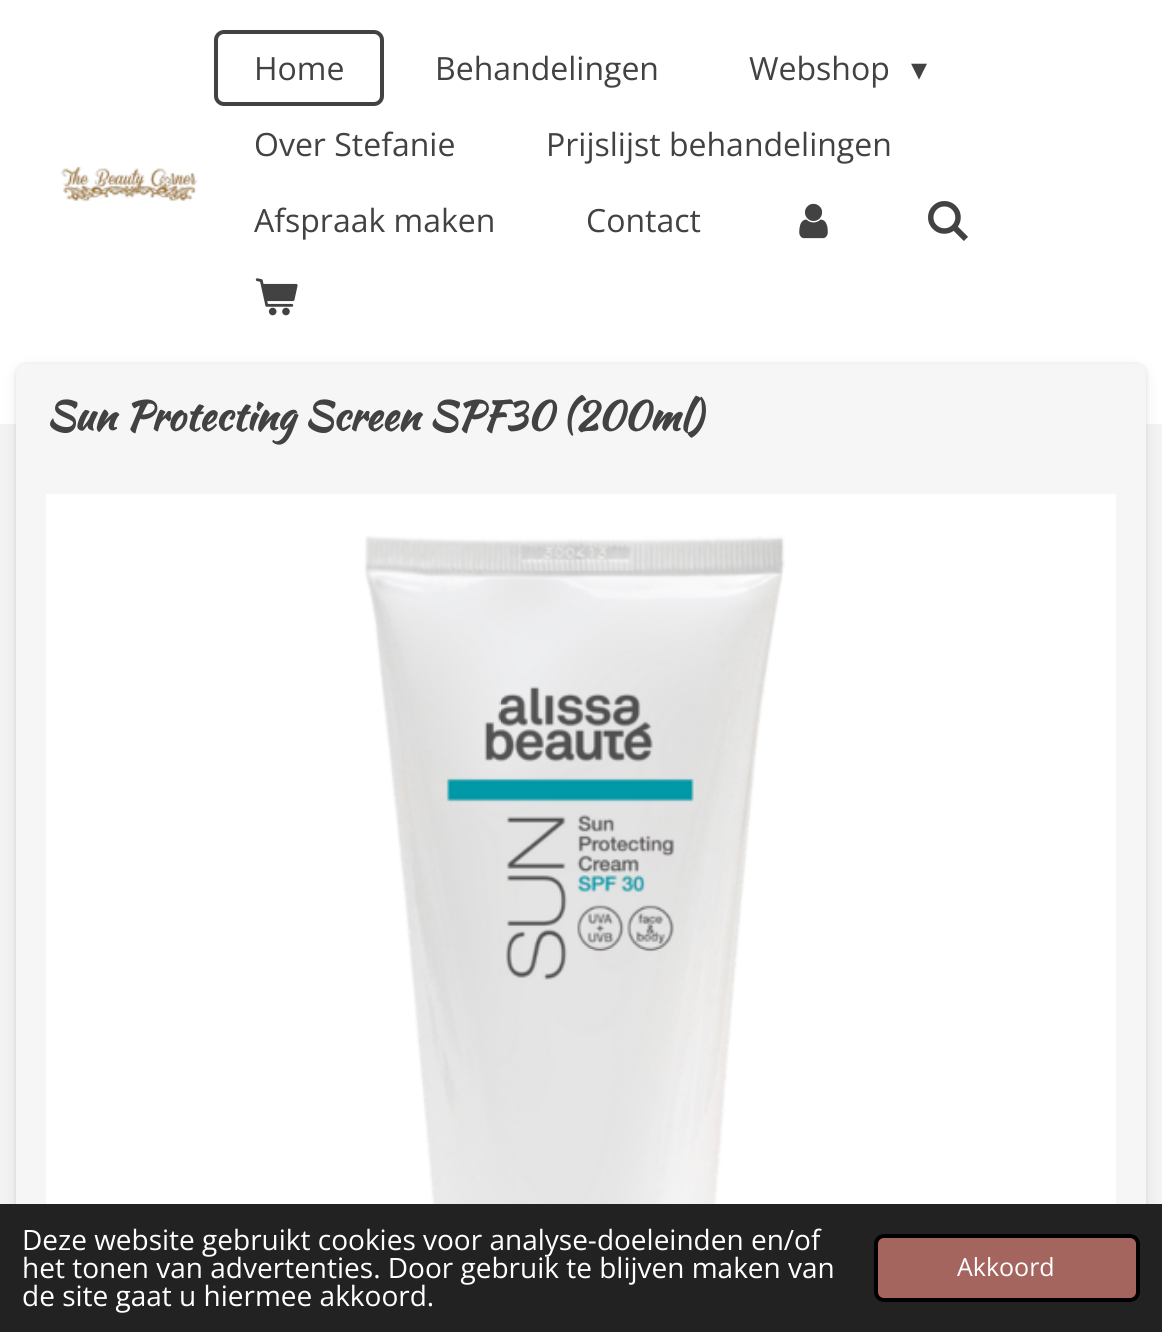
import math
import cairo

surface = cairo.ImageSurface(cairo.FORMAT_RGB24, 1162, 1332)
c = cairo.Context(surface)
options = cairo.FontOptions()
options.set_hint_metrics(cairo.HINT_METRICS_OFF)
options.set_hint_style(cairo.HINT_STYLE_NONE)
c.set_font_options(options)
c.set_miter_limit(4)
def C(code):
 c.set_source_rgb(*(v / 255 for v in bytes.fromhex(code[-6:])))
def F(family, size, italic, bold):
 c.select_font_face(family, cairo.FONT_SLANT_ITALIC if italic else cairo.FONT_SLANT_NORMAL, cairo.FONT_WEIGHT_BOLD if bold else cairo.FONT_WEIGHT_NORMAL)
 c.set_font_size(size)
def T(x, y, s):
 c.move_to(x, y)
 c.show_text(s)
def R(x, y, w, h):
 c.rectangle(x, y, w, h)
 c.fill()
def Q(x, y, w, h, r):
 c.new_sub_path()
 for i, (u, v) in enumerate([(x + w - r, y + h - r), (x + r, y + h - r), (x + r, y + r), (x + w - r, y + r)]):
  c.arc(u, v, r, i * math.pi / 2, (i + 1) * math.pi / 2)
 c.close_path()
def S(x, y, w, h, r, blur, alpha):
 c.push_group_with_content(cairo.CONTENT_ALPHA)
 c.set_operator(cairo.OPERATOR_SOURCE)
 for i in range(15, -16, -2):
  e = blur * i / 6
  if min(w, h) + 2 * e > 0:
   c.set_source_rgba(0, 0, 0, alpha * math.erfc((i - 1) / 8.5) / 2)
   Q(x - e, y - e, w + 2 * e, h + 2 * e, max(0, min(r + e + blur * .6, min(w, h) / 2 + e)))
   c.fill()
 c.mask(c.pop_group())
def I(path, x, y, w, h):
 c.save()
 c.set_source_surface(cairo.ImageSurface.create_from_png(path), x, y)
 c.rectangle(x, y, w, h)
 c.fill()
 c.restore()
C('f4f3f3')
c.paint()
C('ffffff')
R(0,0,1162,424)
I('1.png',61,166,137,36)
Q(216,32,166,72,8)
C('424242')
c.set_line_width(4)
c.stroke()
F('Open Sans',32,0,0)
T(254,80,'Home')
T(435,80,'Behandelingen')
T(749,80,'Webshop')
F('DejaVu Sans',32,0,0)
T(911,80,'▾')
F('Open Sans',32,0,0)
T(254,156,'Over Stefanie')
T(546,156,'Prijslijst behandelingen')
T(254,232,'Afspraak maken')
T(586,232,'Contact')
I('2.png',799,203,29,36)
I('3.png',928,201,40,40)
I('4.png',255,278,43,38)
C('000000')
S(16,364,1130,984,10,2,.1)
S(16,368,1130,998,10,8,.07)
C('f6f6f6')
Q(16,364,1130,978,10)
c.fill()
F('Kaushan Script',40,0,1)
C('424242')
T(46,430,'Sun Protecting Screen SPF30 (200ml)')
I('5.png',46,494,1070,710)
C('222222')
R(0,1204,1162,128)
F('Open Sans',28,0,0)
C('ffffff')
T(22,1250,'Deze website gebruikt cookies voor analyse-doeleinden en/of')
T(22,1278,'het tonen van advertenties. Door gebruik te blijven maken van')
T(22,1306,'de site gaat u hiermee akkoord.')
C('a5655f')
Q(876,1236,262,64,8)
c.fill_preserve()
C('000000')
c.stroke()
F('Open Sans',25,0,0)
C('ffffff')
T(957,1276,'Akkoord')
surface.write_to_png('o.png')
